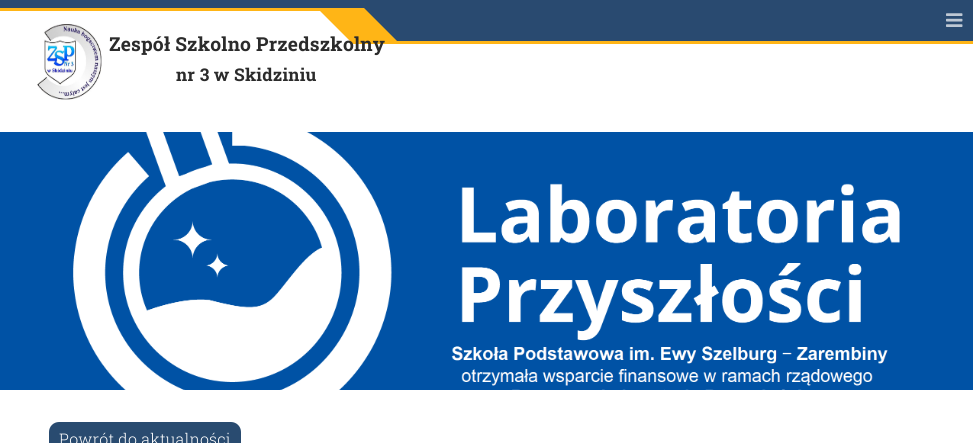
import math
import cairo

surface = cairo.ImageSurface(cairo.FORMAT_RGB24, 973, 443)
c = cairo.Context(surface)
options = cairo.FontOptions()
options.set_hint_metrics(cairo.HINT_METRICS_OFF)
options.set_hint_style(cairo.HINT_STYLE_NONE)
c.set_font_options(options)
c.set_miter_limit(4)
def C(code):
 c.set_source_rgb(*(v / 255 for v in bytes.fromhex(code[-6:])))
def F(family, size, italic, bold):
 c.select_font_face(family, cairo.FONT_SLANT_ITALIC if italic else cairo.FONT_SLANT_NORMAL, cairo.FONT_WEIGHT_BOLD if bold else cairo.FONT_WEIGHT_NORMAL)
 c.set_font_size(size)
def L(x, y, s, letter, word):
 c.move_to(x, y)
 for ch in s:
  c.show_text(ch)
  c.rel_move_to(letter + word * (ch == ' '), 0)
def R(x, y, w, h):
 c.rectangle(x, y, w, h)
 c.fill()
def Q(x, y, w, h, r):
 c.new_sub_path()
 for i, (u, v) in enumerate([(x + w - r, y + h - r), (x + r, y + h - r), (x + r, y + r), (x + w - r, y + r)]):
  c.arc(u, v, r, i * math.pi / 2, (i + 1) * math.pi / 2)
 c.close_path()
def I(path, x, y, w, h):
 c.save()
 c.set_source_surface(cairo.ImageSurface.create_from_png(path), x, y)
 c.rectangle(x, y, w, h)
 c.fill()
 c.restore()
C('ffffff')
c.paint()
C('294a70')
R(0,0,973,41)
C('ffb516')
R(397,41,576,3)
I('1.png',946,13,17,14)
c.new_path()
c.move_to(400,44)
c.line_to(0,44)
c.line_to(0,8)
c.line_to(364,8)
c.close_path()
c.fill()
C('ffffff')
c.new_path()
c.move_to(362,53)
c.line_to(0,53)
c.line_to(0,11)
c.line_to(320,11)
c.close_path()
c.fill()
I('2.png',37,24,65,76)
F('Roboto Slab',19.25,0,1)
C('2b2b2b')
L(109,51,'Zespół Szkolno Przedszkolny',.2,0)
F('Roboto Slab',17.5,0,1)
L(176,81,'nr 3 w Skidziniu',.2,0)
I('3.png',0,132,973,258)
C('294b70')
Q(49,422,192,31,10)
c.fill()
F('Roboto Slab Light',16,0,0)
C('ffffff')
L(59,445,'Powrót do aktualności',.2,0)
surface.write_to_png('o.png')
